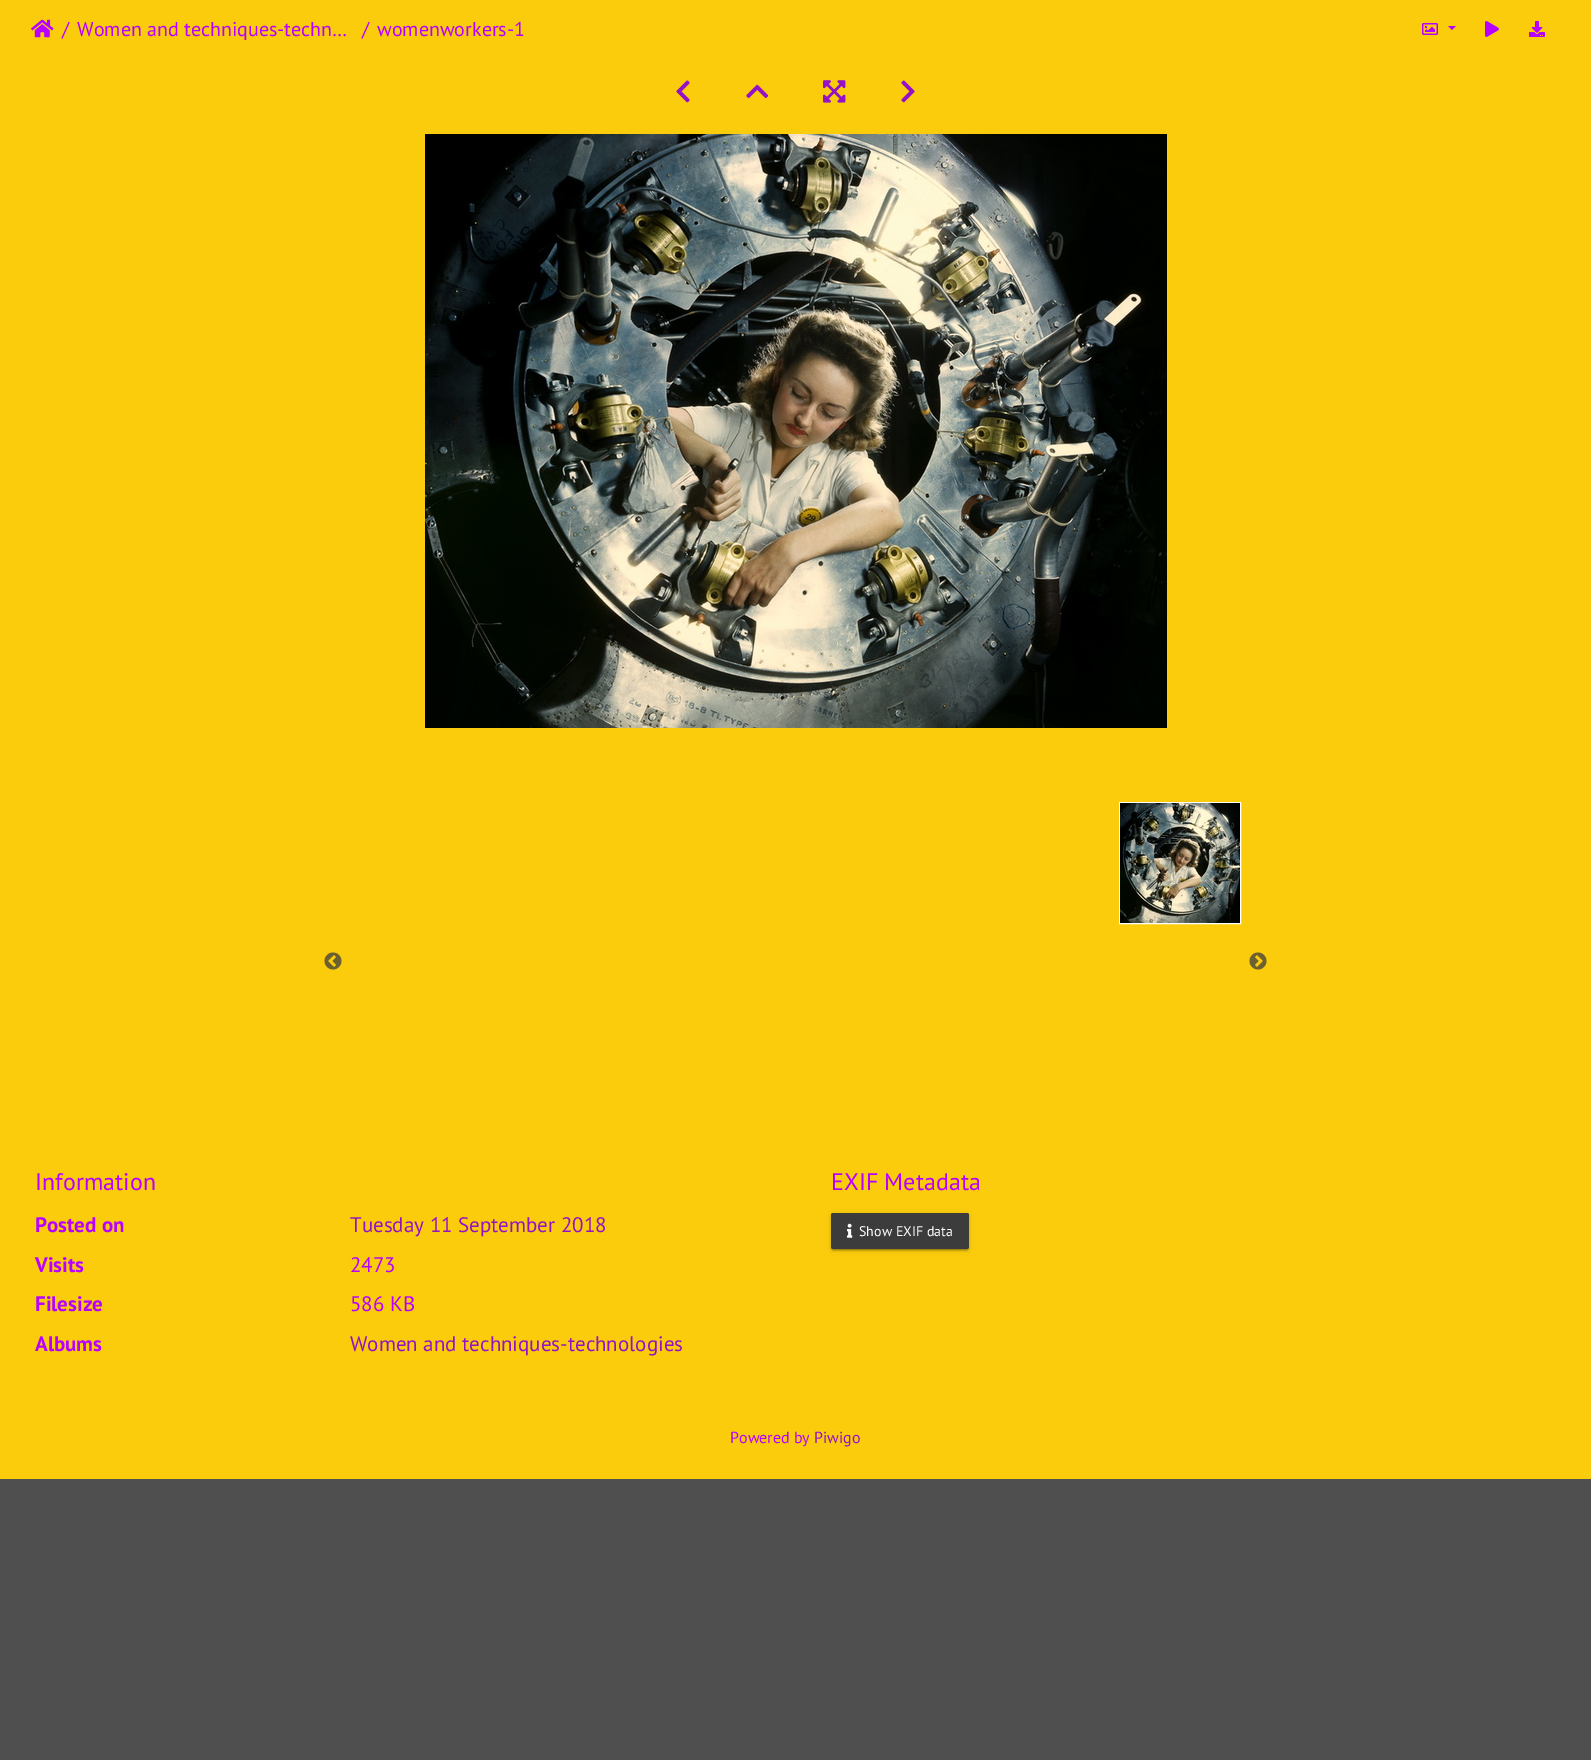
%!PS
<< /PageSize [1591 1760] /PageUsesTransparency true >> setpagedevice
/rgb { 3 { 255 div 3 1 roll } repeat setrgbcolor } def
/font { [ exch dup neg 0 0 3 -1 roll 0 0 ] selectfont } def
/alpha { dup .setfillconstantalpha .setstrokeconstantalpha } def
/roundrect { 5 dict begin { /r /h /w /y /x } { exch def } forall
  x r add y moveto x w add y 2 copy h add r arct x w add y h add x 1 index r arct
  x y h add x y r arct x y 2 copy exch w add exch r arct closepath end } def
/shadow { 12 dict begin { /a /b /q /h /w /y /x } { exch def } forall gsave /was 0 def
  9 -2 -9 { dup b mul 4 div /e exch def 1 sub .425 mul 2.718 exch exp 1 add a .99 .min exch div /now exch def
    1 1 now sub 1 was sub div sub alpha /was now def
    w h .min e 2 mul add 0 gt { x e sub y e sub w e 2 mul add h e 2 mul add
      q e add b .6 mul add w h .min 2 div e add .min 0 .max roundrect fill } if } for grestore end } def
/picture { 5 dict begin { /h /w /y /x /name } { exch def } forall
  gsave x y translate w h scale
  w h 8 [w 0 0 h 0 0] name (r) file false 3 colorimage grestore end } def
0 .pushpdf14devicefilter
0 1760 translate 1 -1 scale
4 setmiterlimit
79 79 79 rgb
0 0 1591 1760 rectfill
251 204 12 rgb
0 0 1591 1479 rectfill
(img/1.rgb) 31 19 23 19 picture
(img/2.rgb) 1422 23 16 12 picture
183 0 255 rgb
1448 26 moveto 1456 26 lineto 1452 30 lineto closepath fill
(img/3.rgb) 1485 21 14 16 picture
(img/4.rgb) 1529 21 16 16 picture
(img/5.rgb) 676 80 14 23 picture
(img/6.rgb) 746 84 23 14 picture
(img/7.rgb) 823 80 23 23 picture
(img/8.rgb) 901 80 14 23 picture
(img/9.rgb) 425 134 742 594 picture
255 255 255 rgb
1119.5 802.5 121 121 rectstroke
(img/10.rgb) 1120 803 120 120 picture
(img/11.rgb) 324 952 18 18 picture
(img/12.rgb) 1249 952 18 18 picture
0 0 0 rgb
831 1214 138 36 2 2.5 0.12 shadow
833 1218 134 32 0 0.5 0.2 shadow
831 1215 138 36 2 1 0.14 shadow
60 60 60 rgb
831 1213 138 36 2 roundrect fill
(img/13.rgb) 847 1223 6 15 picture
/PTSans-Regular 20 font
183 0 255 rgb
[
  [(/) 62 36]
  [(Women and techniques-techn…) 77 36]
  [(/) 362 36]
  [(womenworkers-1) 377 36]
] { aload pop moveto show } forall
/PTSans-Regular 24 font
35 1190 moveto (Information) show
/PTSans-Bold 21 font
35 1232 moveto (Posted on) show
/PTSans-Regular 21 font
148 17 198 rgb
350 1232 moveto (Tuesday 11 September 2018) show
/PTSans-Bold 21 font
183 0 255 rgb
35 1272 moveto (Visits) show
/PTSans-Regular 21 font
350 1272 moveto (2473) show
/PTSans-Bold 21 font
35 1311 moveto (Filesize) show
/PTSans-Regular 21 font
350 1311 moveto (586 KB) show
/PTSans-Bold 21 font
35 1351 moveto (Albums) show
/PTSans-Regular 21 font
148 17 198 rgb
350 1351 moveto (Women and techniques-technologies) show
/PTSans-Regular 24 font
183 0 255 rgb
831 1190 moveto (EXIF Metadata) show
/PTSans-Regular 14 font
255 255 255 rgb
859 1236 moveto (Show EXIF data) show
/PTSans-Regular 16 font
183 0 255 rgb
730 1443 moveto (Powered by) show
148 17 198 rgb
814 1443 moveto (Piwigo) show
.poppdf14devicefilter showpage
